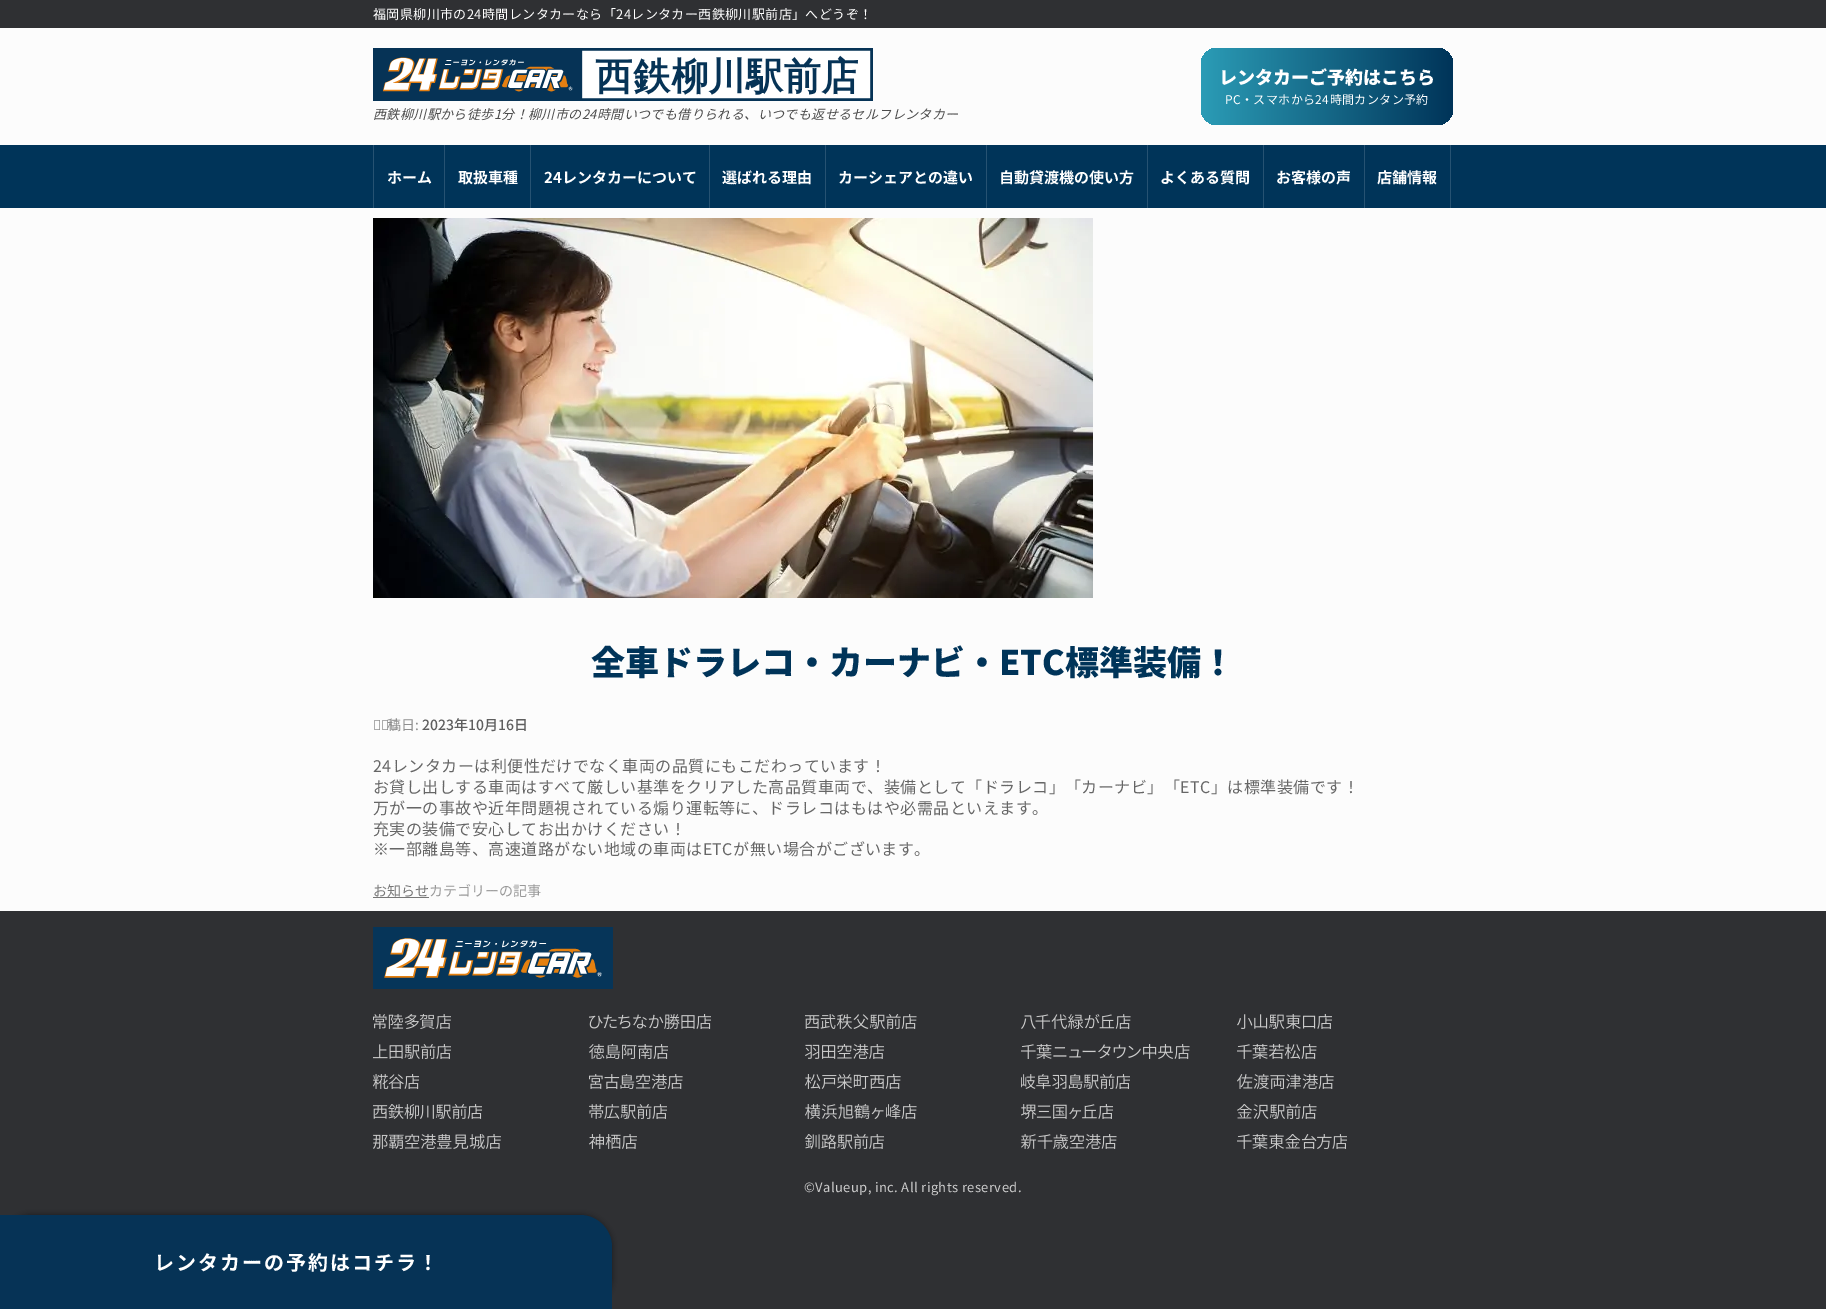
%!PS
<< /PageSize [1826 1309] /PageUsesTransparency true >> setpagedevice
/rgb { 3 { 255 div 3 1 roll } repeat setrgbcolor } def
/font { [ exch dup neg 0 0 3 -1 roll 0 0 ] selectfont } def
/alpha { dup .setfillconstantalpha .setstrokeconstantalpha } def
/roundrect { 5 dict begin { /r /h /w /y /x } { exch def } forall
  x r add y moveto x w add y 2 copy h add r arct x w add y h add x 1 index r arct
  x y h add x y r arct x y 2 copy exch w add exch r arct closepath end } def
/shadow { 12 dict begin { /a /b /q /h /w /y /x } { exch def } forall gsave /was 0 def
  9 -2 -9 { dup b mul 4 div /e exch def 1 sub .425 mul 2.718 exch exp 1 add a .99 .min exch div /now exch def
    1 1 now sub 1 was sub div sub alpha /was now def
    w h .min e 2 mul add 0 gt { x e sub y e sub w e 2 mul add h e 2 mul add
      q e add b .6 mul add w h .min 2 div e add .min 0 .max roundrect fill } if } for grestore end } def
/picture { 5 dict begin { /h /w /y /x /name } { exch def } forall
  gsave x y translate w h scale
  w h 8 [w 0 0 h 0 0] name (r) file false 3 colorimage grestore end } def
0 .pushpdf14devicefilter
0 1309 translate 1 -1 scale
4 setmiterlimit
47 48 51 rgb
0 0 1826 1309 rectfill
252 252 252 rgb
0 28 1826 117 rectfill
gsave 1201 48 252 77 16 roundrect clip newpath
<< /ShadingType 2 /ColorSpace /DeviceRGB /Coords [1201 87 1453 86] /Extend [true true] /Function << /FunctionType 2 /Domain [0 1] /C0 [0.169 0.612 0.714] /C1 [0 0.204 0.349] /N 1 >> >> shfill grestore
(img/1.rgb) 373 48 500 53 picture
[
  [0 145 1826 63 0 52 89]
  [373 145 1 63 38 82 114]
  [444 145 1 63 38 82 114]
  [530 145 1 63 38 82 114]
  [709 145 1 63 38 82 114]
  [825 145 1 63 38 82 114]
  [986 145 1 63 38 82 114]
  [1147 145 1 63 38 82 114]
  [1263 145 1 63 38 82 114]
  [1364 145 1 63 38 82 114]
  [1450 145 1 63 38 82 114]
  [0 208 1826 703 252 252 252]
] { aload pop rgb rectfill } forall
(img/2.rgb) 373 218 720 380 picture
119 119 119 rgb
373 897 56 1 rectfill
(img/3.rgb) 373 927 240 62 picture
(img/4.rgb) 373 1014 78 15 picture
(img/5.rgb) 589 1014 122 15 picture
(img/6.rgb) 805 1014 112 15 picture
(img/7.rgb) 1021 1014 110 15 picture
(img/8.rgb) 1237 1014 95 15 picture
(img/9.rgb) 373 1044 78 15 picture
(img/10.rgb) 589 1044 79 15 picture
(img/11.rgb) 805 1044 79 15 picture
(img/12.rgb) 1021 1044 169 15 picture
(img/13.rgb) 1237 1044 80 15 picture
(img/14.rgb) 373 1074 46 15 picture
(img/15.rgb) 589 1074 94 15 picture
(img/16.rgb) 805 1074 96 15 picture
(img/17.rgb) 1021 1074 109 15 picture
(img/18.rgb) 1237 1074 97 15 picture
(img/19.rgb) 373 1104 109 15 picture
(img/20.rgb) 589 1104 78 15 picture
(img/21.rgb) 805 1104 112 15 picture
(img/22.rgb) 1021 1104 92 15 picture
(img/23.rgb) 1237 1104 80 15 picture
(img/24.rgb) 373 1134 128 15 picture
(img/25.rgb) 589 1134 48 15 picture
(img/26.rgb) 805 1134 79 15 picture
(img/27.rgb) 1021 1134 96 15 picture
(img/28.rgb) 1237 1134 110 15 picture
0 0 0 rgb
0 1215 612 94 32 3 0.4 shadow
6 51 86 rgb
0 1215 moveto 580 1215 lineto 597.5 1215 612 1229.5 612 1247 curveto 612 1309 lineto 0 1309 lineto closepath fill
/NotoSansJP-Regular 13 font
255 255 255 rgb
373 19 moveto 0.4 0 (福岡県柳川市の24時間レンタカーなら「24レンタカー西鉄柳川駅前店」へどうぞ！) ashow
/NotoSansJP-Black 18 font
1219 84 moveto (レンタカーご予約はこちら) show
/NotoSansJP-Regular 12 font
1225 104 moveto 0.4 0 (PC・スマホから24時間カンタン予約) ashow
/NotoSansJP-Italic 13 font
75 75 75 rgb
373 119 moveto 0.4 0 (西鉄柳川駅から徒歩1分！柳川市の24時間いつでも借りられる、いつでも返せるセルフレンタカー) ashow
/NotoSansJP-Bold 15 font
255 255 255 rgb
[
  [(ホーム) 387 183]
  [(取扱車種) 458 183]
  [(24レンタカーについて) 544 183]
  [(選ばれる理由) 722 183]
  [(カーシェアとの違い) 838 183]
  [(自動貸渡機の使い方) 999 183]
  [(よくある質問) 1160 183]
  [(お客様の声) 1276 183]
  [(店舗情報) 1377 183]
] { aload pop moveto show } forall
/NotoSansJP-Black 34 font
0 52 89 rgb
591 675 moveto (全車ドラレコ・カーナビ・ETC標準装備！) show
/NotoSans-Regular 14 font
143 143 143 rgb
373 730 moveto (投) show
/NotoSansJP-Regular 14 font
387 730 moveto (稿日:) show
/NotoSansJP-Medium 14 font
94 94 94 rgb
422 730 moveto (2023年10月16日) show
/NotoSansJP-Regular 16 font
102 102 102 rgb
373 772 moveto 0.48 0 (24レンタカーは利便性だけでなく車両の品質にもこだわっています！) ashow
373 793 moveto 0.48 0 (お貸し出しする車両はすべて厳しい基準をクリアした高品質車両で、装備として「ドラレコ」「カーナビ」「ETC」は標準装備です！) ashow
373 814 moveto 0.48 0 (万が一の事故や近年問題視されている煽り運転等に、ドラレコはもはや必需品といえます。) ashow
373 835 moveto 0.48 0 (充実の装備で安心してお出かけください！) ashow
373 855 moveto 0.48 0 (※一部離島等、高速道路がない地域の車両はETCが無い場合がございます。) ashow
/NotoSansJP-Regular 14 font
119 119 119 rgb
373 896 moveto (お知らせ) show
153 153 153 rgb
429 896 moveto (カテゴリーの記事) show
/NotoSansJP-Regular 13 font
204 204 204 rgb
804 1192 moveto 0.4 0 (©Valueup, inc. All rights reserved.) ashow
/NotoSansJP-Bold 20 font
255 255 255 rgb
154 1270 moveto 2 0 (レンタカーの予約はコチラ！) ashow
.poppdf14devicefilter showpage
